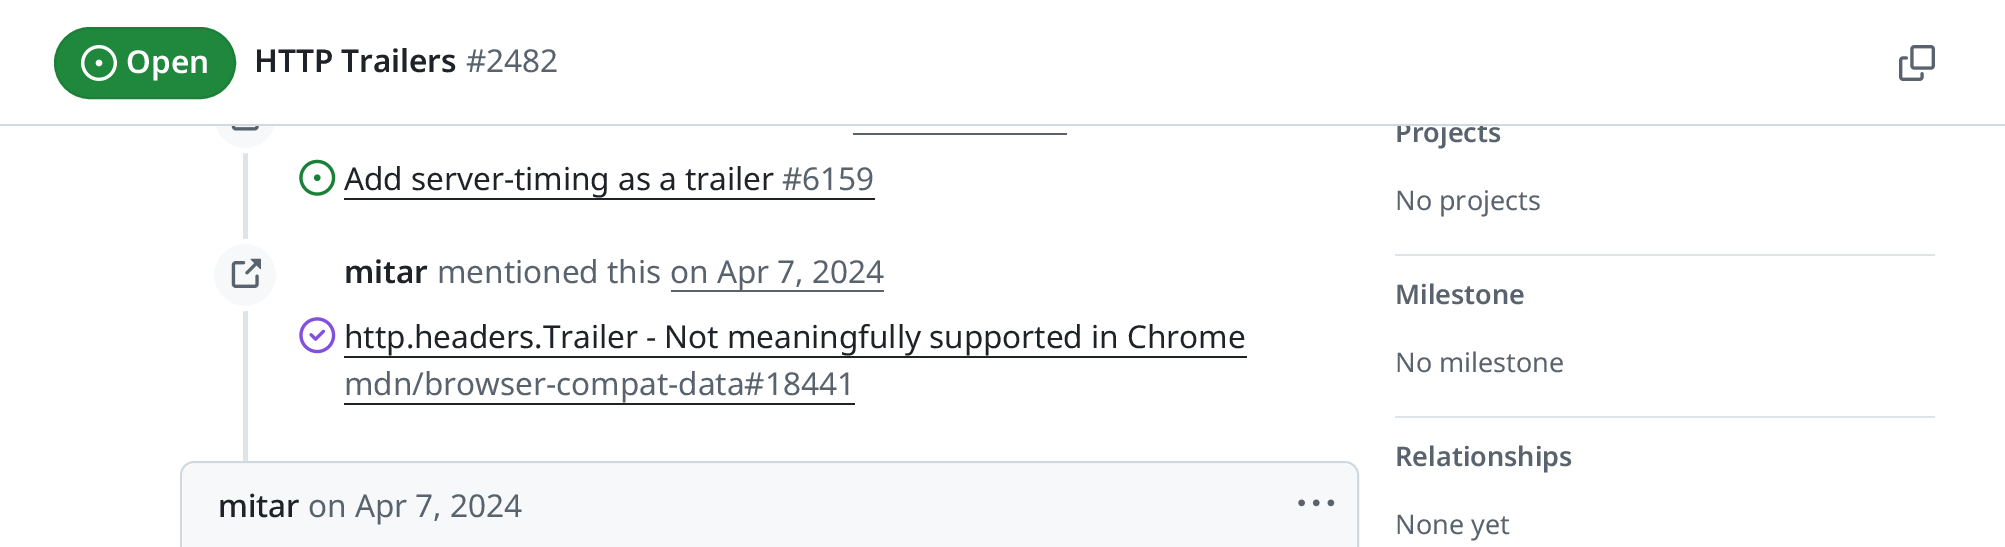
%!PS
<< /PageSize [2005 547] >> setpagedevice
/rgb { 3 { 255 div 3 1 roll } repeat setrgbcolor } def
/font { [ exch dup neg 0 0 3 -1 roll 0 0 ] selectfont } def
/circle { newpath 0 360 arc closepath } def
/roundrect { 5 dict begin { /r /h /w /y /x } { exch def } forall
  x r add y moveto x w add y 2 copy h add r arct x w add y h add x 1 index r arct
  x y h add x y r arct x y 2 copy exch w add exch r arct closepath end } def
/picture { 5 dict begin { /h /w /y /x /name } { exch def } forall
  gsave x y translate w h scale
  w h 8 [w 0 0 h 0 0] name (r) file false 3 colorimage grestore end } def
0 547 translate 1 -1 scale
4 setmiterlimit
255 255 255 rgb
0 0 2005 547 rectfill
(img/2.rgb) 1899 45 36 36 picture
223 228 233 rgb
243 152 5 273 rectfill
246 248 250 rgb
245 117 33.5 circle gsave fill grestore
255 255 255 rgb
5 setlinewidth
stroke
(img/3.rgb) 231 126 28 5 picture
89 99 110 rgb
853 133 214 2 rectfill
(img/4.rgb) 299 159 37 37 picture
31 35 40 rgb
344 198 531 2 rectfill
246 248 250 rgb
245 275 33.5 circle gsave fill grestore
255 255 255 rgb
stroke
(img/5.rgb) 231 258 30 30 picture
89 99 110 rgb
671 290 213 2 rectfill
(img/6.rgb) 299 317 37 37 picture
[
  [344 356 903 2 31 35 40]
  [344 403 511 2 31 35 40]
  [243 425 5 36 223 228 233]
] { aload pop rgb rectfill } forall
209 217 224 rgb
2 setlinewidth
181 462 1177 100 13 roundrect stroke
246 248 250 rgb
196 464 moveto 1343 464 lineto 1350.5 464 1357 470.5 1357 478 curveto 1357 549 lineto 182 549 lineto 182 478 lineto 182 470.5 188.5 464 196 464 curveto closepath fill
(img/7.rgb) 1298 499 37 8 picture
223 228 233 rgb
1395 254 540 2 rectfill
1395 416 540 2 rectfill
/NotoSans-SemiBold 31.5 font
31 35 40 rgb
254 72 moveto (HTTP Trailers) show
/NotoSans-Regular 31.5 font
89 99 110 rgb
466 72 moveto (#2482) show
31 35 40 rgb
344 190 moveto (Add server-timing as a trailer) show
89 99 110 rgb
782 190 moveto (#6159) show
/NotoSans-SemiBold 31.5 font
31 35 40 rgb
344 283 moveto (mitar) show
/NotoSans-Regular 31.5 font
89 99 110 rgb
437 283 moveto (mentioned this) show
670 283 moveto (on Apr 7, 2024) show
31 35 40 rgb
344 348 moveto (http.headers.Trailer - Not meaningfully supported in Chrome) show
89 99 110 rgb
344 395 moveto (mdn/browser-compat-data#18441) show
gsave
218 482 81 47 rectclip
/NotoSans-Medium 31.5 font
31 35 40 rgb
218 517 moveto (mitar) show
grestore
308 517 moveto (on Apr 7, 2024) show
/NotoSans-SemiBold 27 font
1395 142 moveto (Projects) show
255 255 255 rgb
214 86 1232 38 rectfill
31 136 61 rgb
55 28 180 70 35 roundrect gsave fill grestore
26 127 55 rgb
stroke
(img/1.rgb) 81 45 36 36 picture
/NotoSans-SemiBold 31.5 font
255 255 255 rgb
126 73 moveto (Open) show
209 217 224 rgb
0 124 2005 2 rectfill
/NotoSans-Regular 27 font
89 99 110 rgb
1395 210 moveto (No projects) show
/NotoSans-SemiBold 27 font
1395 304 moveto (Milestone) show
/NotoSans-Regular 27 font
1395 372 moveto (No milestone) show
/NotoSans-SemiBold 27 font
1395 466 moveto (Relationships) show
/NotoSans-Regular 27 font
1395 534 moveto (None yet) show
showpage
